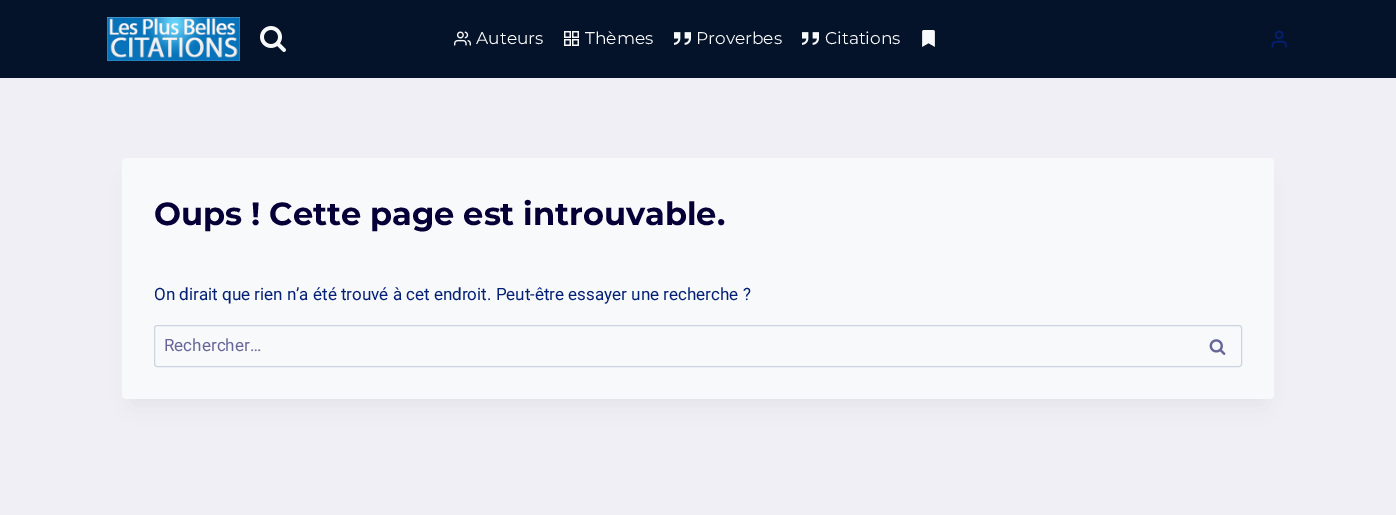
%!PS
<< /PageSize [1396 515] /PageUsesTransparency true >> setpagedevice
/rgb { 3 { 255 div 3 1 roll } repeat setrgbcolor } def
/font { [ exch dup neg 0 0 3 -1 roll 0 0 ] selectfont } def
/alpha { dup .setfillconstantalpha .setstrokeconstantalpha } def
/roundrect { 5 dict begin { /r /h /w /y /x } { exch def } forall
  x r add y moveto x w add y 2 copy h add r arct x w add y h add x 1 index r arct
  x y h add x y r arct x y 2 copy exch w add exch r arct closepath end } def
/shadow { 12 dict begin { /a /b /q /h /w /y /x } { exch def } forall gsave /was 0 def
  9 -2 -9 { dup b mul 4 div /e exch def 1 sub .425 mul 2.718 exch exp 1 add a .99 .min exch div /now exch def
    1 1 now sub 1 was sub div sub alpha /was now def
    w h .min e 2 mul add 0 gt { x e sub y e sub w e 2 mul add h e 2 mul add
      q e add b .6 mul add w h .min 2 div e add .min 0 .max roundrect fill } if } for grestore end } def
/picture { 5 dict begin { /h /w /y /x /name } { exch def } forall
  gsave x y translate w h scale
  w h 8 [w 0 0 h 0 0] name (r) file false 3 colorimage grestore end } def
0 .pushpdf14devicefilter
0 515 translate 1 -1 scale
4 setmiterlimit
239 239 245 rgb
0 0 1396 515 rectfill
4 19 41 rgb
0 0 1396 78 rectfill
(img/1.rgb) 107 17 133 44 picture
(img/2.rgb) 260 26 26 26 picture
(img/3.rgb) 454 31 17 15 picture
(img/4.rgb) 564 31 15 15 picture
(img/5.rgb) 674 32 17 13 picture
(img/5.rgb) 802 32 17 13 picture
(img/6.rgb) 922 30 13 17 picture
(img/7.rgb) 1271 30 16 18 picture
0 0 0 rgb
132 183 1132 221 0 12.5 0.05 shadow
248 249 250 rgb
122 158 1152 241 4 roundrect fill
203 213 224 rgb
154.5 325.5 1087 41 2.5 roundrect stroke
(img/8.rgb) 1209 339 17 16 picture
/Montserrat-Regular 17 font
248 249 250 rgb
[
  [(Auteurs) 476 44]
  [(Thèmes) 585 44]
  [(Proverbes) 696 44]
  [(Citations) 825 44]
] { aload pop moveto show } forall
/Montserrat-Bold 32 font
4 0 55 rgb
154 225 moveto (Oups ! Cette page est introuvable.) show
/Roboto-Regular 17 font
3 32 117 rgb
154 300 moveto (On dirait que rien n’a été trouvé à cet endroit. Peut-être essayer une recherche ?) show
102 102 153 rgb
164 351 moveto (Rechercher…) show
.poppdf14devicefilter showpage
